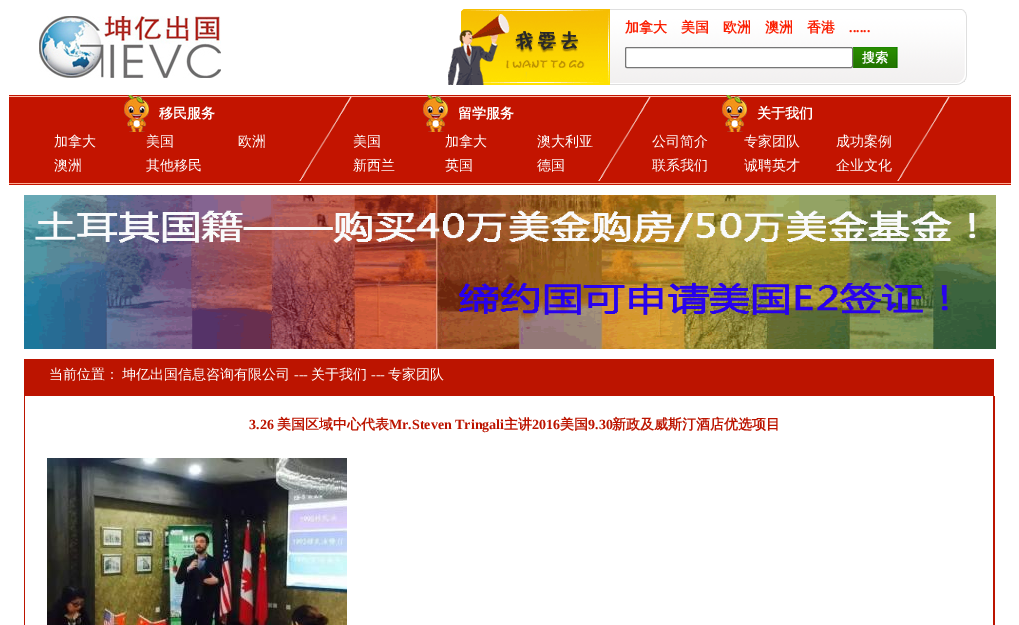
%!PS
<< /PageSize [1019 625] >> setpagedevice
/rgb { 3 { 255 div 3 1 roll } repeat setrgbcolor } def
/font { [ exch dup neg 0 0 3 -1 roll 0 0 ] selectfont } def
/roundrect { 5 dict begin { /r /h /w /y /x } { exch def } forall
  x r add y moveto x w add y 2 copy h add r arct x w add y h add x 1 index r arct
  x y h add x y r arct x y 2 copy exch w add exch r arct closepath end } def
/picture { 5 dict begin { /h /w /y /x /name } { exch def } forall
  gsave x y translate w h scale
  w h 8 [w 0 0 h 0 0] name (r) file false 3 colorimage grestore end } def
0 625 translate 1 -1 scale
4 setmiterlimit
255 255 255 rgb
0 0 1019 625 rectfill
(img/1.rgb) 39 16 182 62 picture
(img/2.rgb) 448 9 162 76 picture
(img/3.rgb) 610 9 346 76 picture
625.5 47.5 227 20 1.5 roundrect gsave fill grestore
118 118 118 rgb
stroke
(img/4.rgb) 853 47 45 21 picture
(img/5.rgb) 956 9 11 76 picture
(img/6.rgb) 9 95 1002 90 picture
(img/7.rgb) 124 95 25 37 picture
(img/7.rgb) 423 95 25 37 picture
(img/7.rgb) 722 95 25 37 picture
(img/9.rgb) 897 97 53 84 picture
(img/10.rgb) 24 195 972 154 picture
188 20 0 rgb
24 359 970 37 rectfill
(img/11.rgb) 24 396 971 229 picture
(img/12.rgb) 47 458 300 167 picture
/WenQuanYiZenHei-Bold 14 font
251 31 2 rgb
[
  [(加拿大) 625 32]
  [(美国) 681 32]
  [(欧洲) 723 32]
  [(澳洲) 765 32]
  [(香港) 807 32]
] { aload pop moveto show } forall
/LiberationSerif-Bold 14 font
849 32 moveto (......) show
/WenQuanYiZenHei-Bold 13 font
255 255 255 rgb
862 62 moveto (搜索) show
/WenQuanYiZenHei-Bold 14 font
159 118 moveto (移民服务) show
/WenQuanYiZenHei-Medium 14 font
[
  [(加拿大) 54 146]
  [(美国) 146 146]
  [(欧洲) 238 146]
  [(澳洲) 54 170]
  [(其他移民) 146 170]
] { aload pop moveto show } forall
/WenQuanYiZenHei-Bold 14 font
458 118 moveto (留学服务) show
/WenQuanYiZenHei-Medium 14 font
[
  [(美国) 353 146]
  [(加拿大) 445 146]
  [(澳大利亚) 537 146]
  [(新西兰) 353 170]
] { aload pop moveto show } forall
(img/8.rgb) 299 97 54 84 picture
445 170 moveto (英国) show
537 170 moveto (德国) show
/WenQuanYiZenHei-Bold 14 font
757 118 moveto (关于我们) show
/WenQuanYiZenHei-Medium 14 font
[
  [(公司简介) 652 146]
  [(专家团队) 744 146]
  [(成功案例) 836 146]
  [(联系我们) 652 170]
] { aload pop moveto show } forall
(img/8.rgb) 598 97 54 84 picture
[
  [(诚聘英才) 744 170]
  [(企业文化) 836 170]
  [(当前位置：) 49 379]
  [(坤亿出国信息咨询有限公司) 122 379]
] { aload pop moveto show } forall
/LiberationSerif-Regular 14 font
294 379 moveto (---) show
/WenQuanYiZenHei-Medium 14 font
311 379 moveto (关于我们) show
/LiberationSerif-Regular 14 font
371 379 moveto (---) show
/WenQuanYiZenHei-Medium 14 font
388 379 moveto (专家团队) show
/LiberationSerif-Bold 14 font
188 20 0 rgb
249 429 moveto (3.26) show
/WenQuanYiZenHei-Bold 14 font
277 429 moveto (美国区域中心代表) show
/LiberationSerif-Bold 14 font
389 429 moveto (Mr.Steven Tringali) show
/WenQuanYiZenHei-Bold 14 font
504 429 moveto (主讲) show
/LiberationSerif-Bold 14 font
532 429 moveto (2016) show
/WenQuanYiZenHei-Bold 14 font
560 429 moveto (美国) show
/LiberationSerif-Bold 14 font
588 429 moveto (9.30) show
/WenQuanYiZenHei-Bold 14 font
612 429 moveto (新政及威斯汀酒店优选项目) show
showpage
